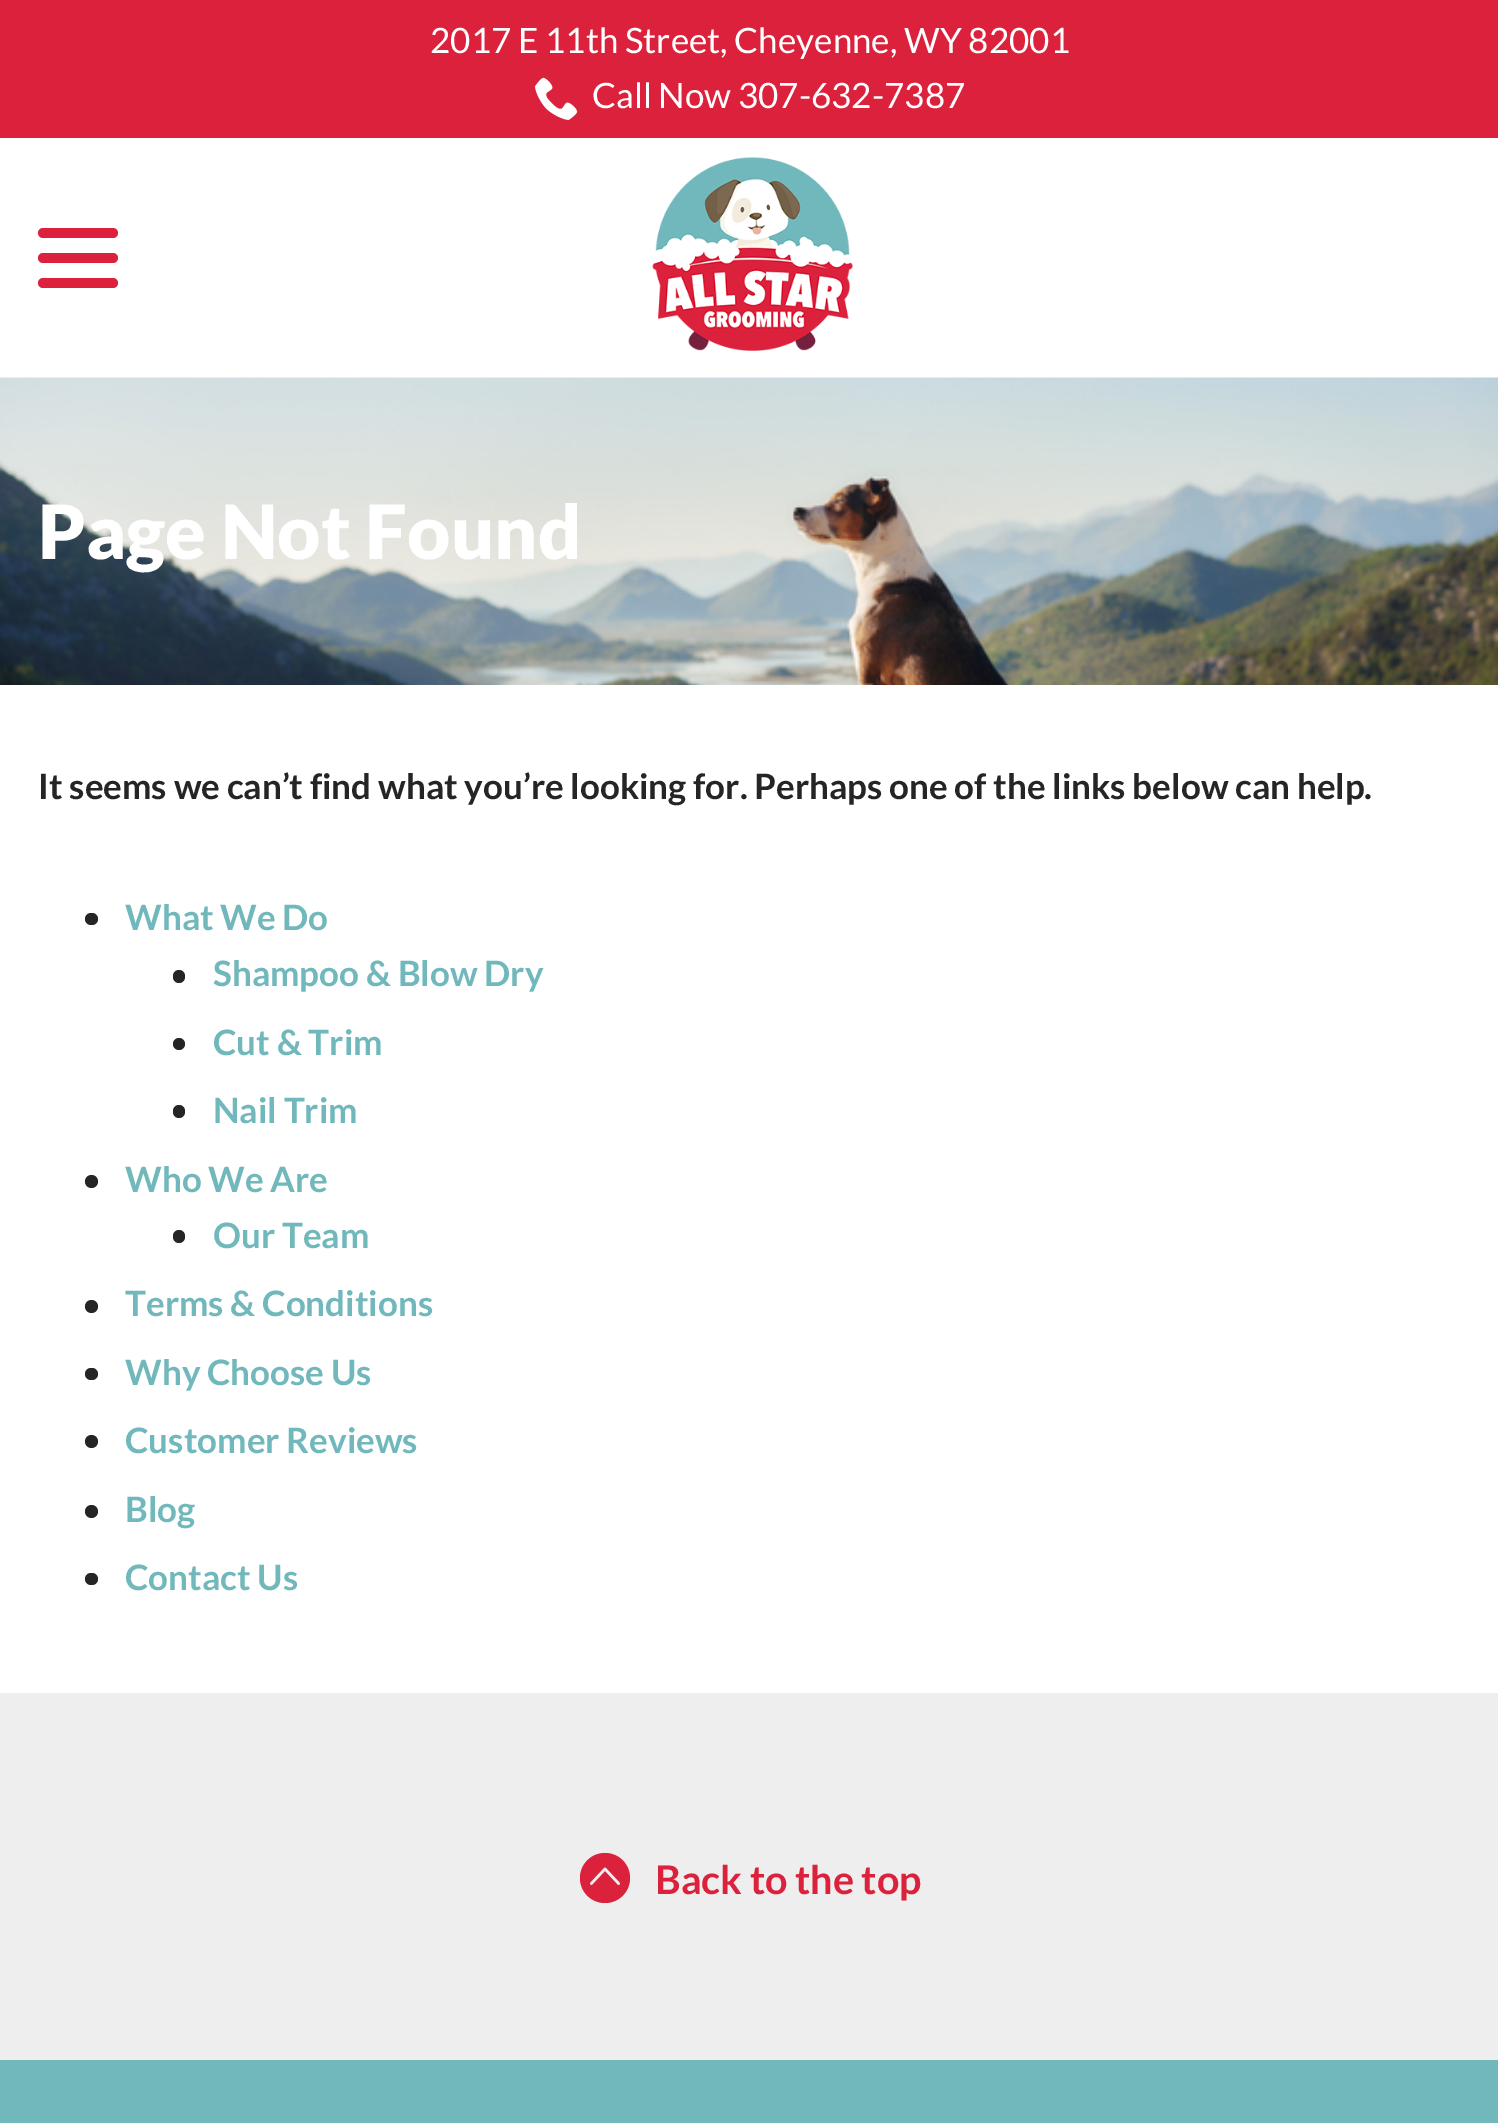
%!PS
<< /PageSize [1498 2123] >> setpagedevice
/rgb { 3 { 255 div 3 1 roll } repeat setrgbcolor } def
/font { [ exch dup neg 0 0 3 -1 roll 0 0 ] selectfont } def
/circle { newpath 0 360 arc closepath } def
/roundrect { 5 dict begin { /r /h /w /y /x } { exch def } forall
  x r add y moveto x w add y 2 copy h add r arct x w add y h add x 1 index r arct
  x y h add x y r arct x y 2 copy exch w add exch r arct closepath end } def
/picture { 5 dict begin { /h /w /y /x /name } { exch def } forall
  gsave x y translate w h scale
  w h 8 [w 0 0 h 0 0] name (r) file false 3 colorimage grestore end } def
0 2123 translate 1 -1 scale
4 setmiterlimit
255 255 255 rgb
0 0 1498 2123 rectfill
219 33 60 rgb
0 0 1498 138 rectfill
(img/1.rgb) 535 77 43 43 picture
38 253 80 10 5 roundrect fill
38 228 80 10 5 roundrect fill
38 278 80 10 5 roundrect fill
(img/2.rgb) 652 157 201 194 picture
(img/3.rgb) 0 377 1498 308 picture
37 37 37 rgb
85 913 13 12 6 roundrect fill
173 970 12 13 6 roundrect fill
179 1044 6 circle fill
173 1105 12 13 6 roundrect fill
91.5 1181.5 6.5 circle fill
173 1230 12 13 6 roundrect fill
91.5 1306.5 6.5 circle fill
85 1368 13 12 6 roundrect fill
91.5 1441.5 6.5 circle fill
91.5 1511.5 6.5 circle fill
85 1573 13 12 6 roundrect fill
238 238 238 rgb
0 1693 1498 367 rectfill
219 33 60 rgb
605 1878 25 circle fill
(img/4.rgb) 590 1867 30 18 picture
113 184 188 rgb
0 2060 1498 63 rectfill
/Lato-Regular 35 font
255 255 255 rgb
430 53 moveto (2017 E 11th Street, Cheyenne, WY 82001) show
592 108 moveto (Call Now 307-632-7387) show
/Lato-Black 75 font
38 559 moveto (Page Not Found) show
/Lato-Bold 35 font
37 37 37 rgb
38 799 moveto (It seems we can’t find what you’re looking for. Perhaps one of the links below can help.) show
113 184 188 rgb
[
  [(What We Do) 125 930]
  [(Shampoo & Blow Dry) 213 986]
  [(Cut & Trim) 213 1055]
  [(Nail Trim) 213 1123]
  [(Who We Are) 125 1192]
  [(Our Team) 213 1248]
  [(Terms & Conditions) 125 1316]
  [(Why Choose Us) 125 1385]
  [(Customer Reviews) 125 1453]
  [(Blog) 125 1522]
  [(Contact Us) 125 1590]
] { aload pop moveto show } forall
/Lato-Bold 39.5 font
219 33 60 rgb
655 1894 moveto (Back to the top) show
showpage
